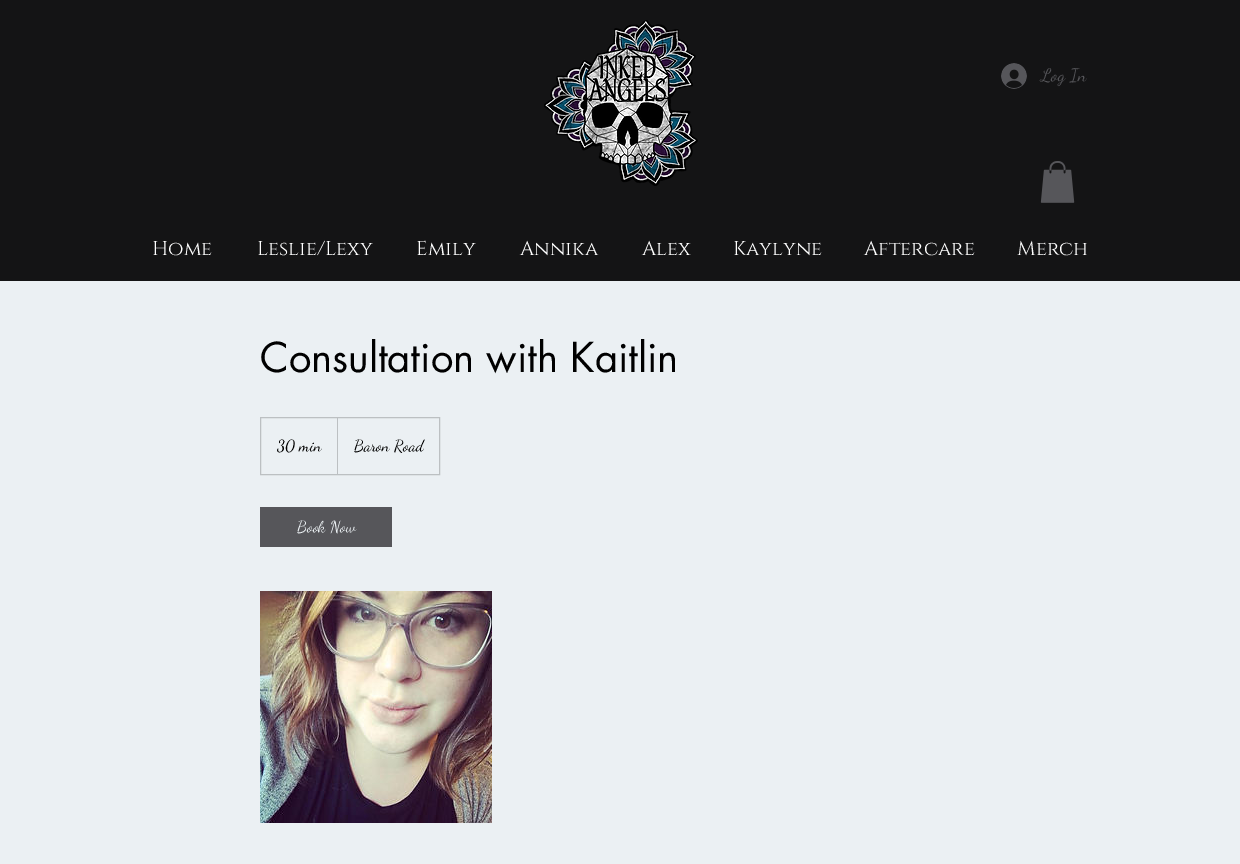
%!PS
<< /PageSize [1240 864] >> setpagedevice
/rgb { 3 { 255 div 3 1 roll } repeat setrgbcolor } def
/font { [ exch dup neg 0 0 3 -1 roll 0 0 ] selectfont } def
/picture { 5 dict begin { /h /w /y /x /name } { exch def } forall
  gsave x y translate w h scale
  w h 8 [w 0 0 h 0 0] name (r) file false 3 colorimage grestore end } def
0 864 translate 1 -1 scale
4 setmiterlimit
20 20 21 rgb
0 0 1240 864 rectfill
(img/1.rgb) 544 20 154 166 picture
(img/2.rgb) 1001 63 26 26 picture
(img/3.rgb) 1040 161 35 42 picture
235 240 243 rgb
0 281 1240 583 rectfill
188 192 194 rgb
260.5 417.5 179 57 rectstroke
337 474 moveto 337 417 lineto 338 418 lineto 338 474 lineto closepath fill
86 86 90 rgb
260 507 132 40 rectfill
(img/4.rgb) 260 591 232 232 picture
/DancingScript-Regular 18 font
1041 81 moveto (Log In) show
/Cinzel-Regular 20 font
255 255 255 rgb
[
  [(Home) 152 255]
  [(Leslie/Lexy) 257 255]
  [(Emily) 416 255]
  [(Annika) 520 255]
  [(Alex) 642 255]
  [(Kaylyne) 733 255]
  [(Aftercare) 864 255]
  [(Merch) 1017 255]
] { aload pop moveto show } forall
/futura-Regular 40 font
0 0 0 rgb
260 372 moveto (Consultation with Kaitlin) show
/DancingScript-Regular 16 font
277 451 moveto (30 min) show
354 451 moveto (Baron Road) show
235 240 243 rgb
297 532 moveto (Book Now) show
showpage
